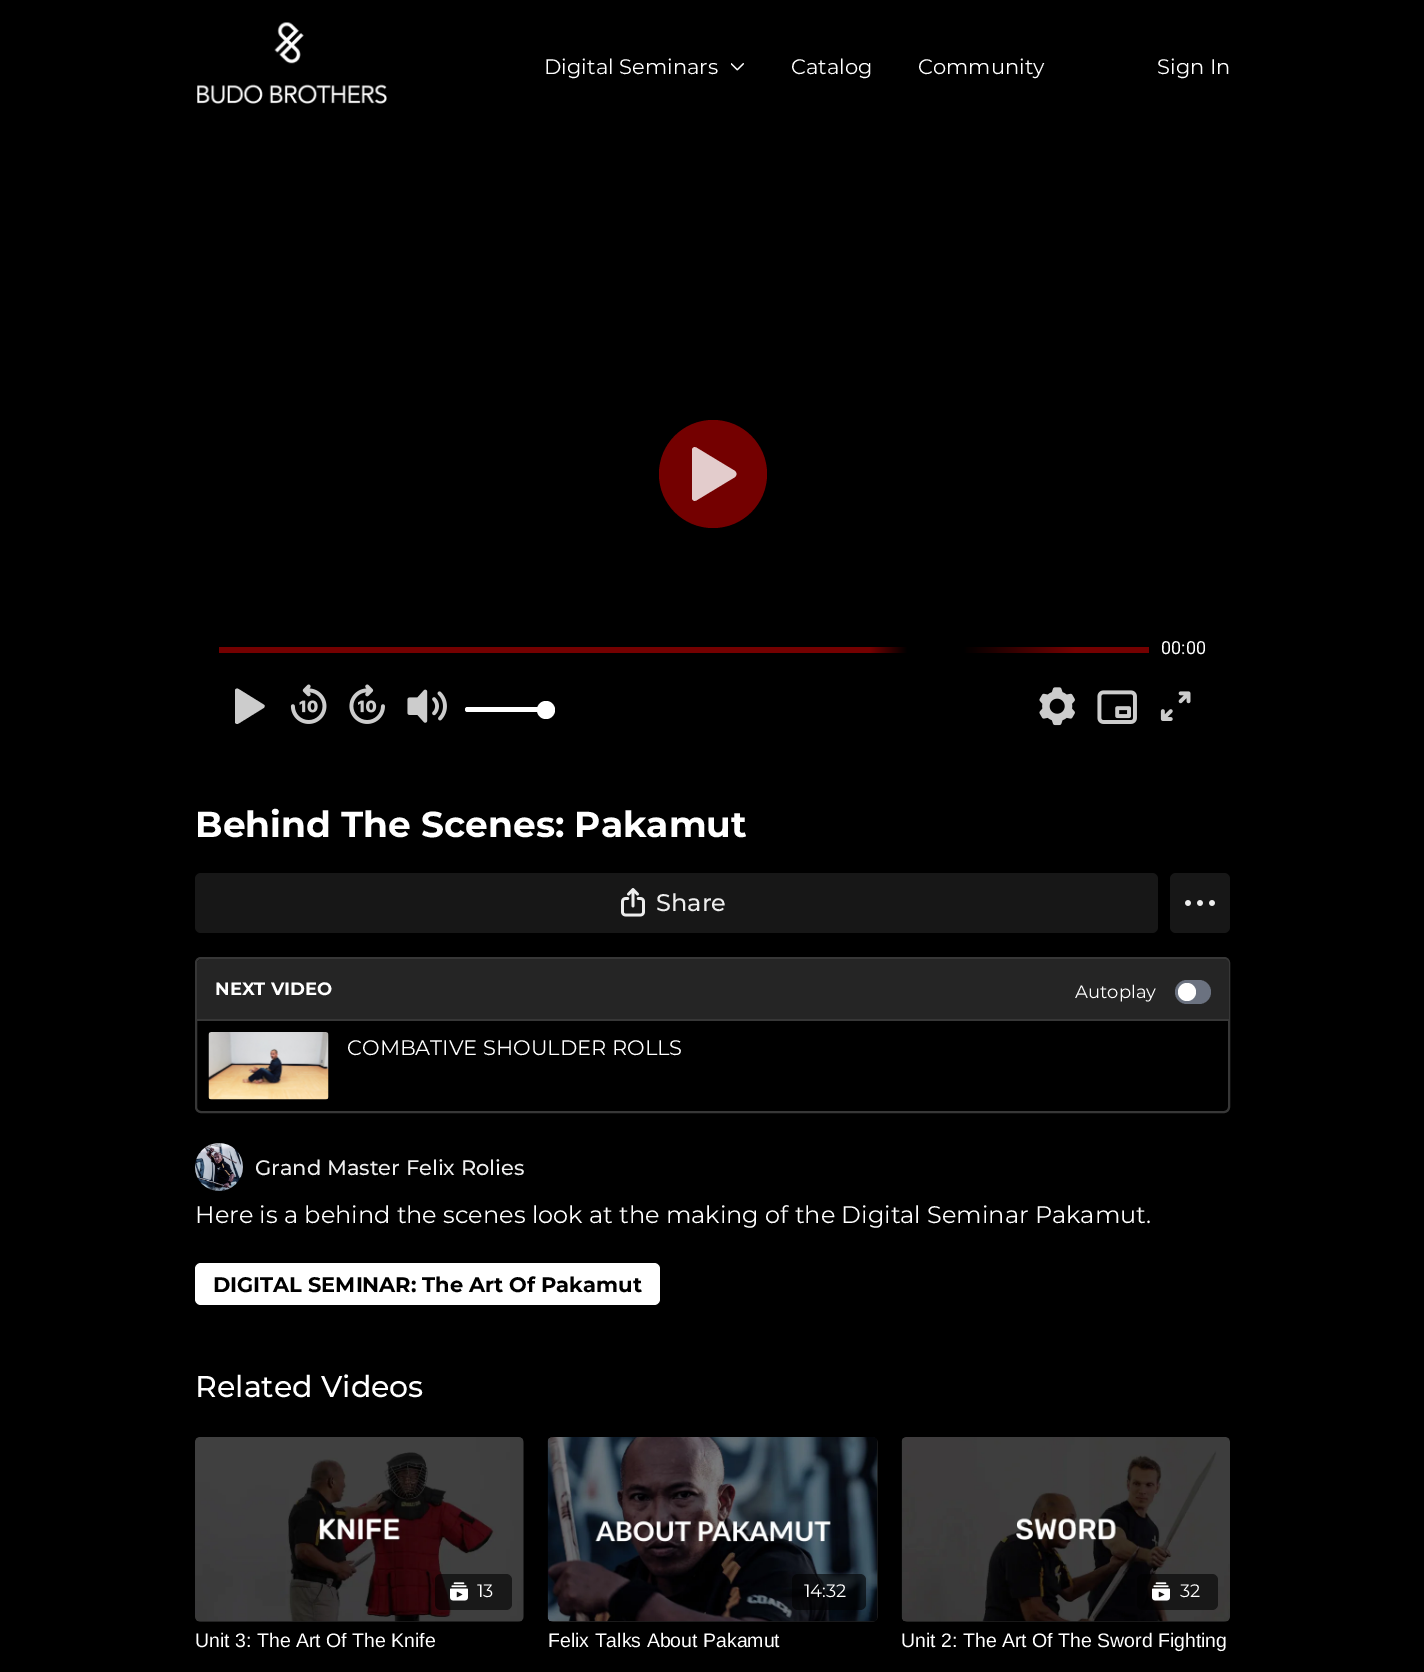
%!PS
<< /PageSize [1424 1672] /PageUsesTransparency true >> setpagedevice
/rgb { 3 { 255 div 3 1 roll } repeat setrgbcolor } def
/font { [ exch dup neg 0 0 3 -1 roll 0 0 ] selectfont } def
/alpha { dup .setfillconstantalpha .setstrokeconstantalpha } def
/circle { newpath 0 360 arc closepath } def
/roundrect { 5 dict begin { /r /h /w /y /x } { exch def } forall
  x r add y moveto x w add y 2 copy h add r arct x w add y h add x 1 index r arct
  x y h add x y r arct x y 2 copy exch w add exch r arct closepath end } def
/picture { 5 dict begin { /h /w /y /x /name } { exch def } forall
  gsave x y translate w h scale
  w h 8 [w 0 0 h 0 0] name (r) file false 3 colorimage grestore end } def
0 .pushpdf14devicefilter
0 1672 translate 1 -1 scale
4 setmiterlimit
0 0 0 rgb
0 0 1424 1672 rectfill
(img/1.rgb) 197 22 190 82 picture
(img/2.rgb) 731 63 13 8 picture
116 0 0 rgb
713 474 54 circle fill
227 204 204 rgb
697 448 moveto 694 446 692 448 692 450 curveto 692 498 lineto 692 500 694 502 697 500 curveto 735 477 lineto 737 475 737 473 735 471 curveto closepath fill
gsave 219 647 930 6 3 roundrect clip newpath
<< /ShadingType 2 /ColorSpace /DeviceRGB /Coords [219 653 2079 652] /Extend [true true] /Function << /FunctionType 3 /Domain [0 1] /Functions [<< /FunctionType 2 /Domain [0 1] /C0 [0.455 0 0] /C1 [0.455 0 0] /N 1 >> << /FunctionType 2 /Domain [0 1] /C0 [0.455 0 0] /C1 [0 0 0] /N 1 >> << /FunctionType 2 /Domain [0 1] /C0 [0 0 0] /C1 [0 0 0] /N 1 >> << /FunctionType 2 /Domain [0 1] /C0 [0 0 0] /C1 [0.455 0 0] /N 1 >> << /FunctionType 2 /Domain [0 1] /C0 [0.455 0 0] /C1 [0.455 0 0] /N 1 >>] /Bounds [0.35 0.37 0.4 0.46] /Encode [0 1 0 1 0 1 0 1 0 1] >> >> shfill grestore
204 204 204 rgb
238.5 689 moveto 237 688 235 689 235 690.5 curveto 235 722 lineto 235 723.5 237 724.5 238.5 723.5 curveto 263.5 708 lineto 265 707 265 705 263.5 704.5 curveto closepath fill
(img/3.rgb) 290 684 37 40 picture
(img/4.rgb) 349 684 36 40 picture
(img/5.rgb) 407 689 40 34 picture
255 255 255 rgb
465 707 90 5 2.5 roundrect fill
546 710 9 circle fill
(img/6.rgb) 1039 687 36 39 picture
(img/7.rgb) 1097 690 40 34 picture
(img/8.rgb) 1160 691 31 30 picture
23 23 23 rgb
195 873 963 60 6 roundrect fill
(img/9.rgb) 621 888 24 29 picture
1170 873 60 60 6 roundrect fill
(img/10.rgb) 1185 900 30 6 picture
55 55 55 rgb
2 setlinewidth
196 958 1033 154 5 roundrect stroke
37 37 37 rgb
202 959 moveto 1224 959 lineto 1227 959 1229 961 1229 964 curveto 1229 1019 lineto 197 1019 lineto 197 964 lineto 197 961 199 959 202 959 curveto closepath fill
55 55 55 rgb
197 1019 1032 2 rectfill
107 114 128 rgb
1175 980 36 24 12 roundrect fill
255 255 255 rgb
1187 992 9 circle fill
(img/11.rgb) 208 1032 121 68 picture
(img/12.rgb) 195 1143 48 48 picture
195 1263 465 42 6 roundrect fill
gsave 195 1437 329 185 6 roundrect clip newpath
<< /ShadingType 2 /ColorSpace /DeviceRGB /Coords [195 1529 524 1529] /Extend [true true] /Function << /FunctionType 3 /Domain [0 1] /Functions [<< /FunctionType 2 /Domain [0 1] /C0 [0.129 0.129 0.129] /C1 [0.129 0.129 0.129] /N 1 >> << /FunctionType 2 /Domain [0 1] /C0 [0.129 0.129 0.129] /C1 [0.122 0.122 0.122] /N 1 >> << /FunctionType 2 /Domain [0 1] /C0 [0.122 0.122 0.122] /C1 [0.11 0.11 0.11] /N 1 >> << /FunctionType 2 /Domain [0 1] /C0 [0.11 0.11 0.11] /C1 [0.11 0.11 0.11] /N 1 >>] /Bounds [0.08 0.18 0.33] /Encode [0 1 0 1 0 1 0 1] >> >> shfill grestore
(img/13.rgb) 195 1437 329 185 picture
0.6 alpha
0 0 0 rgb
435 1574 77 36 6 roundrect fill
1 alpha
(img/14.rgb) 450 1582 18 19 picture
gsave 548 1437 330 185 6 roundrect clip newpath
<< /ShadingType 2 /ColorSpace /DeviceRGB /Coords [548 1529 878 1529] /Extend [true true] /Function << /FunctionType 3 /Domain [0 1] /Functions [<< /FunctionType 2 /Domain [0 1] /C0 [0.129 0.129 0.129] /C1 [0.129 0.129 0.129] /N 1 >> << /FunctionType 2 /Domain [0 1] /C0 [0.129 0.129 0.129] /C1 [0.122 0.122 0.122] /N 1 >> << /FunctionType 2 /Domain [0 1] /C0 [0.122 0.122 0.122] /C1 [0.11 0.11 0.11] /N 1 >> << /FunctionType 2 /Domain [0 1] /C0 [0.11 0.11 0.11] /C1 [0.11 0.11 0.11] /N 1 >>] /Bounds [0.08 0.18 0.33] /Encode [0 1 0 1 0 1 0 1] >> >> shfill grestore
(img/15.rgb) 547 1437 331 185 picture
0.6 alpha
792 1574 74 36 6 roundrect fill
1 alpha
gsave 902 1437 328 185 6 roundrect clip newpath
<< /ShadingType 2 /ColorSpace /DeviceRGB /Coords [902 1529 1230 1529] /Extend [true true] /Function << /FunctionType 3 /Domain [0 1] /Functions [<< /FunctionType 2 /Domain [0 1] /C0 [0.129 0.129 0.129] /C1 [0.129 0.129 0.129] /N 1 >> << /FunctionType 2 /Domain [0 1] /C0 [0.129 0.129 0.129] /C1 [0.122 0.122 0.122] /N 1 >> << /FunctionType 2 /Domain [0 1] /C0 [0.122 0.122 0.122] /C1 [0.11 0.11 0.11] /N 1 >> << /FunctionType 2 /Domain [0 1] /C0 [0.11 0.11 0.11] /C1 [0.11 0.11 0.11] /N 1 >>] /Bounds [0.08 0.18 0.33] /Encode [0 1 0 1 0 1 0 1] >> >> shfill grestore
(img/16.rgb) 901 1437 329 185 picture
0.6 alpha
1137 1574 81 36 6 roundrect fill
1 alpha
(img/17.rgb) 1152 1582 18 19 picture
/Montserrat-Regular 21 font
255 255 255 rgb
[
  [(Digital Seminars) 544 74]
  [(Catalog) 791 74]
  [(Community) 918 74]
  [(Sign In) 1157 74]
] { aload pop moveto show } forall
/Roboto-Regular 18 font
1161 654 moveto (00:00) show
/Montserrat-Bold 36 font
195 837 moveto (Behind The Scenes: Pakamut) show
/Montserrat-Medium 24 font
238 238 238 rgb
656 911 moveto (Share) show
/Montserrat-Bold 18 font
255 255 255 rgb
215 995 moveto (NEXT VIDEO) show
/Montserrat-Regular 18 font
1075 998 moveto (Autoplay) show
/Montserrat-Regular 21 font
347 1055 moveto (COMBATIVE SHOULDER ROLLS) show
/Montserrat-Medium 21 font
238 238 238 rgb
255 1175 moveto (Grand Master Felix Rolies) show
/Montserrat-Regular 24 font
255 255 255 rgb
195 1223 moveto (Here is a behind the scenes look at the making of the Digital Seminar Pakamut.) show
/Montserrat-Bold 21 font
0 0 0 rgb
213 1292 moveto (DIGITAL SEMINAR: The Art Of Pakamut) show
/Montserrat-Medium 30 font
255 255 255 rgb
195 1397 moveto (Related Videos) show
/Montserrat-Regular 18 font
477 1597 moveto (13) show
/LiberationSans-Regular 19.5 font
195 1647 moveto (Unit 3: The Art Of The Knife) show
/Montserrat-Regular 18 font
804 1597 moveto (14:32) show
/LiberationSans-Regular 19.5 font
548 1647 moveto (Felix Talks About Pakamut) show
/Montserrat-Regular 18 font
1180 1597 moveto (32) show
/LiberationSans-Regular 19.5 font
901 1647 moveto (Unit 2: The Art Of The Sword Fighting) show
.poppdf14devicefilter showpage
